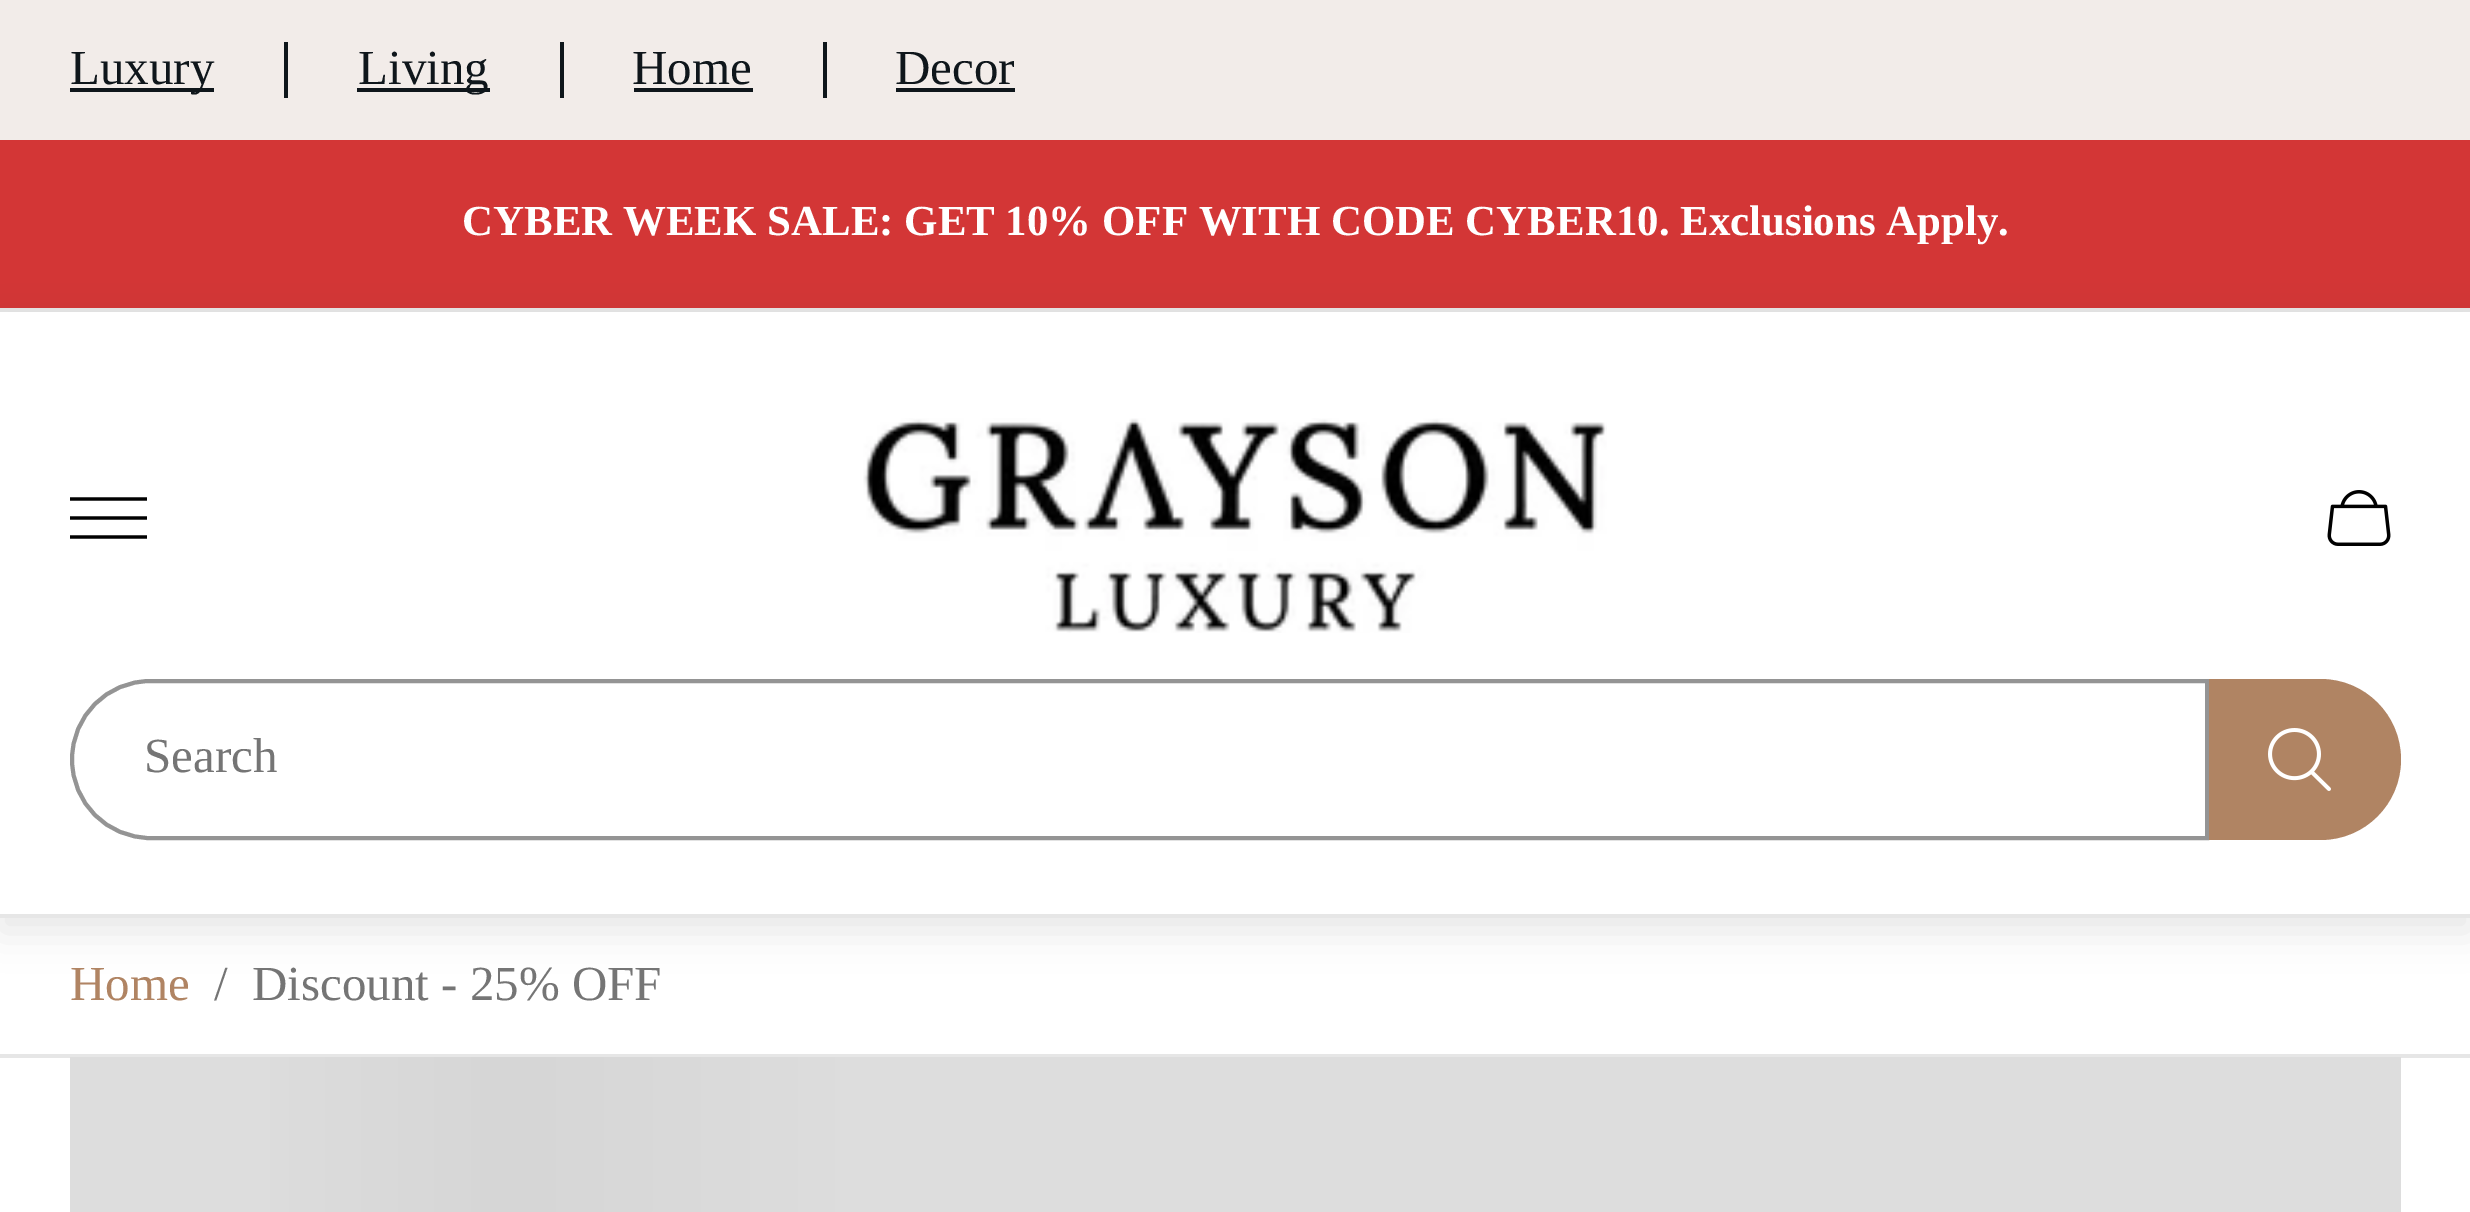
%!PS
<< /PageSize [2470 1212] /PageUsesTransparency true >> setpagedevice
/rgb { 3 { 255 div 3 1 roll } repeat setrgbcolor } def
/font { [ exch dup neg 0 0 3 -1 roll 0 0 ] selectfont } def
/alpha { dup .setfillconstantalpha .setstrokeconstantalpha } def
/roundrect { 5 dict begin { /r /h /w /y /x } { exch def } forall
  x r add y moveto x w add y 2 copy h add r arct x w add y h add x 1 index r arct
  x y h add x y r arct x y 2 copy exch w add exch r arct closepath end } def
/shadow { 12 dict begin { /a /b /q /h /w /y /x } { exch def } forall gsave /was 0 def
  9 -2 -9 { dup b mul 4 div /e exch def 1 sub .425 mul 2.718 exch exp 1 add a .99 .min exch div /now exch def
    1 1 now sub 1 was sub div sub alpha /was now def
    w h .min e 2 mul add 0 gt { x e sub y e sub w e 2 mul add h e 2 mul add
      q e add b .6 mul add w h .min 2 div e add .min 0 .max roundrect fill } if } for grestore end } def
/picture { 5 dict begin { /h /w /y /x /name } { exch def } forall
  gsave x y translate w h scale
  w h 8 [w 0 0 h 0 0] name (r) file false 3 colorimage grestore end } def
0 .pushpdf14devicefilter
0 1212 translate 1 -1 scale
4 setmiterlimit
255 255 255 rgb
0 0 2470 1212 rectfill
[
  [0 0 2470 140 242 236 233]
  [70 88 144 4 15 22 27]
  [284 42 4 56 15 22 27]
  [357 88 133 4 15 22 27]
  [560 42 4 56 15 22 27]
  [634 88 119 4 15 22 27]
  [823 42 4 56 15 22 27]
  [896 88 119 4 15 22 27]
  [0 140 2470 168 211 54 54]
  [0 308 2470 4 230 230 230]
] { aload pop rgb rectfill } forall
gsave
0 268 moveto 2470 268 lineto 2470 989 lineto 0 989 lineto closepath 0 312 moveto 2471 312 lineto 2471 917 lineto 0 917 lineto closepath eoclip newpath
0 0 0 rgb
0 326 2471 605 0 19 0.1 shadow
grestore
0 914 2470 4 rectfill
0 0 0 rgb
3.2 setlinewidth
70 499 moveto 147 499 lineto stroke
70 518 moveto 147 518 lineto stroke
70 537 moveto 147 537 lineto stroke
(img/1.rgb) 863 418 744 215 picture
(img/2.rgb) 2327 490 64 56 picture
148 148 148 rgb
4 setlinewidth
150.5 681 moveto 2207 681 lineto 2207 838 lineto 150.5 838 lineto 107 838 72 803 72 759.5 curveto 72 716 107 681 150.5 681 curveto closepath stroke
176 132 99 rgb
2209 679 moveto 2320.5 679 lineto 2365 679 2401 715 2401 759.5 curveto 2401 804 2365 840 2320.5 840 curveto 2209 840 lineto closepath fill
(img/3.rgb) 2268 728 63 63 picture
230 230 230 rgb
0 1054 2470 4 rectfill
gsave 70 1057 moveto 2401 1057 lineto 2401 1212 lineto 70 1212 lineto closepath clip newpath
<< /ShadingType 2 /ColorSpace /DeviceRGB /Coords [70 1057 2401 1057] /Extend [true true] /Function << /FunctionType 3 /Domain [0 1] /Functions [<< /FunctionType 2 /Domain [0 1] /C0 [0.867 0.867 0.867] /C1 [0.867 0.867 0.867] /N 1 >> << /FunctionType 2 /Domain [0 1] /C0 [0.867 0.867 0.867] /C1 [0.839 0.839 0.839] /N 1 >> << /FunctionType 2 /Domain [0 1] /C0 [0.839 0.839 0.839] /C1 [0.867 0.867 0.867] /N 1 >> << /FunctionType 2 /Domain [0 1] /C0 [0.867 0.867 0.867] /C1 [0.867 0.867 0.867] /N 1 >>] /Bounds [0.08 0.18 0.33] /Encode [0 1 0 1 0 1 0 1] >> >> shfill grestore
/LiberationSerif-Regular 49 font
15 22 27 rgb
[
  [(Luxury) 70 84]
  [(Living) 358 84]
  [(Home) 632 84]
  [(Decor) 895 84]
] { aload pop moveto show } forall
/LiberationSerif-Bold 42.9 font
255 255 255 rgb
462 235 moveto (CYBER WEEK SALE: GET 10% OFF WITH CODE CYBER10. Exclusions Apply.) show
/LiberationSerif-Regular 49 font
117 117 117 rgb
144 772 moveto (Search) show
176 132 99 rgb
70 1000 moveto (Home) show
117 117 117 rgb
214 1000 moveto (/) show
252 1000 moveto (Discount - 25% OFF) show
.poppdf14devicefilter showpage
